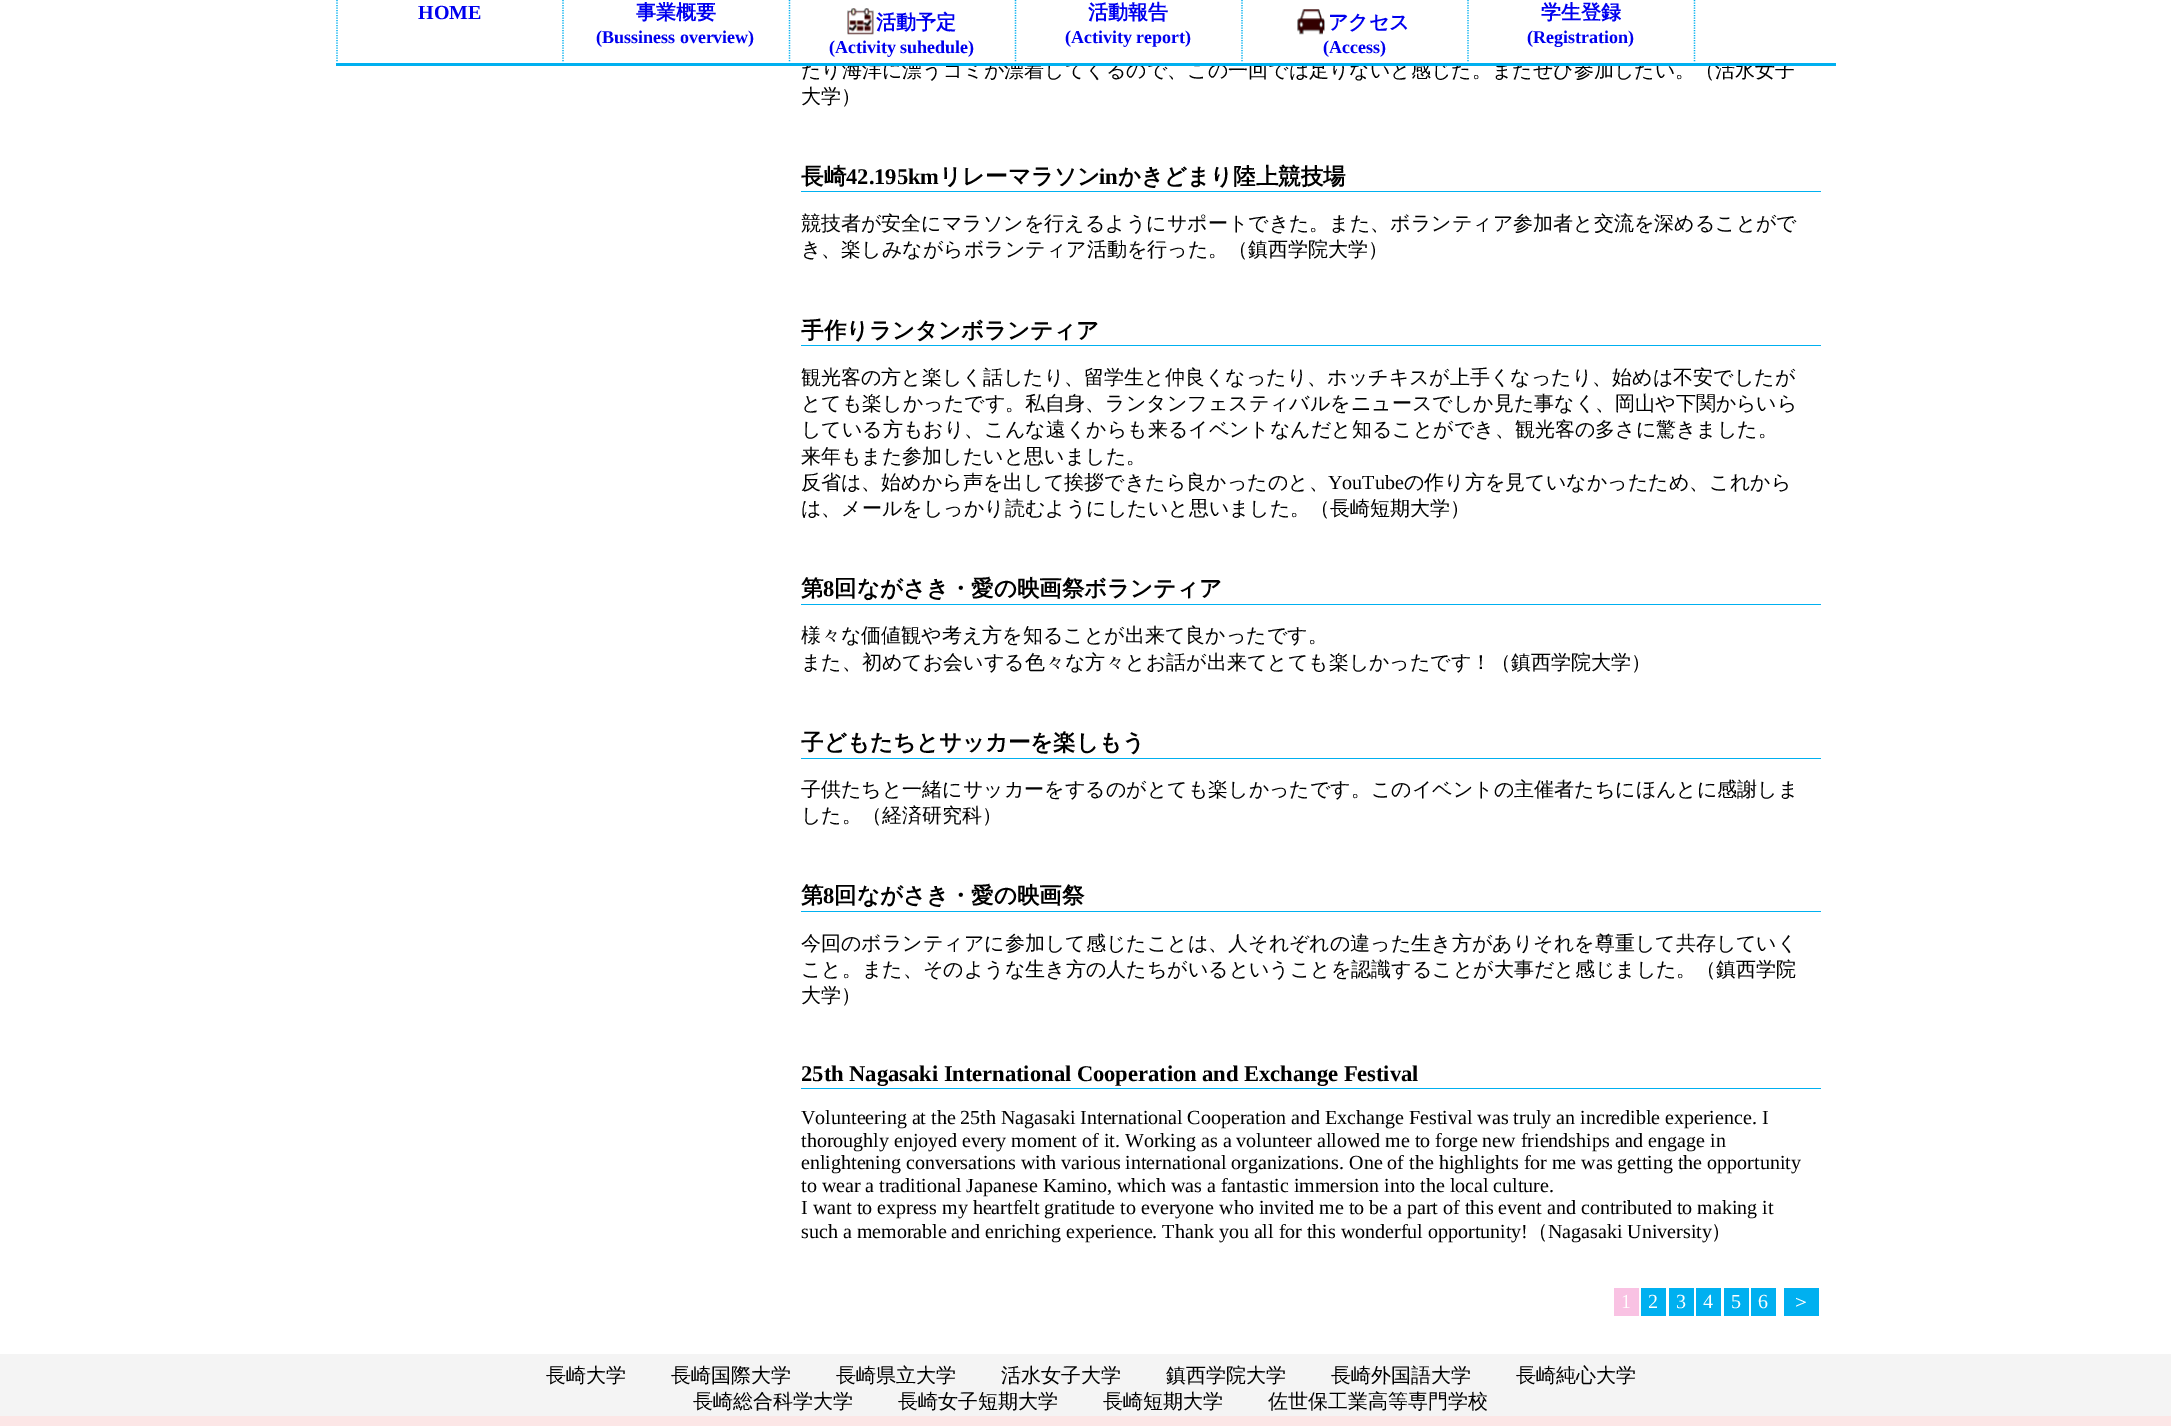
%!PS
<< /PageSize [2171 1426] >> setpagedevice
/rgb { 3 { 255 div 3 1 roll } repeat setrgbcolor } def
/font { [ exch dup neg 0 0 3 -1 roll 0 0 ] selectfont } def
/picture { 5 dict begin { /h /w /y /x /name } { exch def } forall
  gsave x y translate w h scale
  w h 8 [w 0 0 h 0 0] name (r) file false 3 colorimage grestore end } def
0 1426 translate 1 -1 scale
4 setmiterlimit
255 255 255 rgb
0 0 2171 1426 rectfill
0 176 240 rgb
1.2 setlinewidth
[1.25 1.25] 0 setdash
563 0 moveto 563 62.5 lineto stroke
337 0 moveto 337 62.5 lineto stroke
789.5 0 moveto 789.5 62.5 lineto stroke
(img/1.rgb) 847 8 27 27 picture
(img/2.rgb) 1297 9 28 26 picture
[
  [801 191 1020 1 0 176 240]
  [801 345 1020 1 0 176 240]
  [801 604 1020 1 0 176 240]
  [801 758 1020 1 0 176 240]
  [801 911 1020 1 0 176 240]
  [801 1088 1020 1 0 176 240]
  [1614 1288 25 28 249 194 227]
  [1641 1288 25 28 0 176 240]
  [1669 1288 25 28 0 176 240]
  [1696 1288 25 28 0 176 240]
  [1724 1288 25 28 0 176 240]
  [1751 1288 25 28 0 176 240]
  [1784 1288 35 28 0 176 240]
  [0 1354 2171 62 244 244 244]
  [0 1416 2171 10 252 230 230]
] { aload pop rgb rectfill } forall
/LiberationSerif-Bold 20 font
0 0 238 rgb
418 19 moveto (HOME) show
/WenQuanYiZenHei-Bold 20 font
636 19 moveto (事業概要) show
/LiberationSerif-Bold 18 font
596 43 moveto (\(Bussiness overview\)) show
/WenQuanYiZenHei-Bold 20 font
876 29 moveto (活動予定) show
/LiberationSerif-Bold 18 font
829 53 moveto (\(Activity suhedule\)) show
/WenQuanYiZenHei-Bold 20 font
1088 19 moveto (活動報告) show
/LiberationSerif-Bold 18 font
1065 43 moveto (\(Activity report\)) show
/WenQuanYiZenHei-Bold 20 font
1328 29 moveto (アクセス) show
/LiberationSerif-Bold 18 font
1323 53 moveto (\(Access\)) show
/WenQuanYiZenHei-Bold 20 font
1541 19 moveto (学生登録) show
/LiberationSerif-Bold 18 font
1527 43 moveto (\(Registration\)) show
/WenQuanYiZenHei-Medium 20 font
0 0 0 rgb
801 77 moveto (たり海洋に漂うゴミが漂着してくるので、この一回では足りないと感じた。またぜひ参加したい。（活水女子) show
255 255 255 rgb
806 60 985 5 rectfill
0 176 240 rgb
1694.5 0 moveto 1694.5 62.5 lineto stroke
1468 0 moveto 1468 62.5 lineto stroke
1242 0 moveto 1242 62.5 lineto stroke
1015.5 0 moveto 1015.5 62.5 lineto stroke
336 63 1500 3 rectfill
0 0 0 rgb
801 103 moveto (大学）) show
/WenQuanYiZenHei-Bold 22.5 font
801 184 moveto (長崎) show
/LiberationSerif-Bold 22.5 font
846 184 moveto (42.195km) show
/WenQuanYiZenHei-Bold 22.5 font
939 184 moveto (リレーマラソン) show
/LiberationSerif-Bold 22.5 font
1099 184 moveto (in) show
/WenQuanYiZenHei-Bold 22.5 font
1118 184 moveto (かきどまり陸上競技場) show
/WenQuanYiZenHei-Medium 20 font
801 230 moveto (競技者が安全にマラソンを行えるようにサポートできた。また、ボランティア参加者と交流を深めることがで) show
801 256 moveto (き、楽しみながらボランティア活動を行った。（鎮西学院大学）) show
/WenQuanYiZenHei-Bold 22.5 font
801 338 moveto (手作りランタンボランティア) show
/WenQuanYiZenHei-Medium 20 font
[
  [(観光客の方と楽しく話したり、留学生と仲良くなったり、ホッチキスが上手くなったり、始めは不安でしたが) 801 384]
  [(とても楽しかったです。私自身、ランタンフェスティバルをニュースでしか見た事なく、岡山や下関からいら) 801 410]
  [(している方もおり、こんな遠くからも来るイベントなんだと知ることができ、観光客の多さに驚きました。) 801 436]
  [(来年もまた参加したいと思いました。) 801 463]
  [(反省は、始めから声を出して挨拶できたら良かったのと、) 801 489]
] { aload pop moveto show } forall
/LiberationSerif-Regular 20 font
1328 489 moveto (YouTube) show
/WenQuanYiZenHei-Medium 20 font
1404 489 moveto (の作り方を見ていなかったため、これから) show
801 515 moveto (は、メールをしっかり読むようにしたいと思いました。（長崎短期大学）) show
/WenQuanYiZenHei-Bold 22.5 font
801 596 moveto (第) show
/LiberationSerif-Bold 22.5 font
823 596 moveto (8) show
/WenQuanYiZenHei-Bold 22.5 font
834 596 moveto (回ながさき・愛の映画祭ボランティア) show
/WenQuanYiZenHei-Medium 20 font
801 642 moveto (様々な価値観や考え方を知ることが出来て良かったです。) show
801 669 moveto (また、初めてお会いする色々な方々とお話が出来てとても楽しかったです！（鎮西学院大学）) show
/WenQuanYiZenHei-Bold 22.5 font
801 750 moveto (子どもたちとサッカーを楽しもう) show
/WenQuanYiZenHei-Medium 20 font
801 796 moveto (子供たちと一緒にサッカーをするのがとても楽しかったです。このイベントの主催者たちにほんとに感謝しま) show
801 822 moveto (した。（経済研究科）) show
/WenQuanYiZenHei-Bold 22.5 font
801 903 moveto (第) show
/LiberationSerif-Bold 22.5 font
823 903 moveto (8) show
/WenQuanYiZenHei-Bold 22.5 font
834 903 moveto (回ながさき・愛の映画祭) show
/WenQuanYiZenHei-Medium 20 font
[
  [(今回のボランティアに参加して感じたことは、人それぞれの違った生き方がありそれを尊重して共存していく) 801 950]
  [(こと。また、そのような生き方の人たちがいるということを認識することが大事だと感じました。（鎮西学院) 801 976]
  [(大学）) 801 1002]
] { aload pop moveto show } forall
/LiberationSerif-Bold 22.5 font
801 1081 moveto (25th Nagasaki International Cooperation and Exchange Festival) show
/LiberationSerif-Regular 20 font
[
  [(Volunteering at the 25th Nagasaki International Cooperation and Exchange Festival was truly an incredible experience. I) 801 1124]
  [(thoroughly enjoyed every moment of it. Working as a volunteer allowed me to forge new friendships and engage in) 801 1147]
  [(enlightening conversations with various international organizations. One of the highlights for me was getting the opportunity) 801 1169]
  [(to wear a traditional Japanese Kamino, which was a fantastic immersion into the local culture.) 801 1192]
  [(I want to express my heartfelt gratitude to everyone who invited me to be a part of this event and contributed to making it) 801 1214]
  [(such a memorable and enriching experience. Thank you all for this wonderful opportunity!) 801 1238]
] { aload pop moveto show } forall
/WenQuanYiZenHei-Medium 20 font
1528 1238 moveto (（) show
/LiberationSerif-Regular 20 font
1548 1238 moveto (Nagasaki University) show
/WenQuanYiZenHei-Medium 20 font
1711 1238 moveto (）) show
/LiberationSerif-Regular 20 font
255 255 255 rgb
[
  [(1) 1621 1308]
  [(2) 1648 1308]
  [(3) 1676 1308]
  [(4) 1703 1308]
  [(5) 1731 1308]
  [(6) 1758 1308]
] { aload pop moveto show } forall
/WenQuanYiZenHei-Medium 20 font
1791 1308 moveto (＞) show
0 0 0 rgb
[
  [(長崎大学) 546 1382]
  [(長崎国際大学) 671 1382]
  [(長崎県立大学) 836 1382]
  [(活水女子大学) 1001 1382]
  [(鎮西学院大学) 1166 1382]
  [(長崎外国語大学) 1331 1382]
  [(長崎純心大学) 1516 1382]
  [(長崎総合科学大学) 693 1408]
  [(長崎女子短期大学) 898 1408]
  [(長崎短期大学) 1103 1408]
  [(佐世保工業高等専門学校) 1268 1408]
] { aload pop moveto show } forall
showpage
